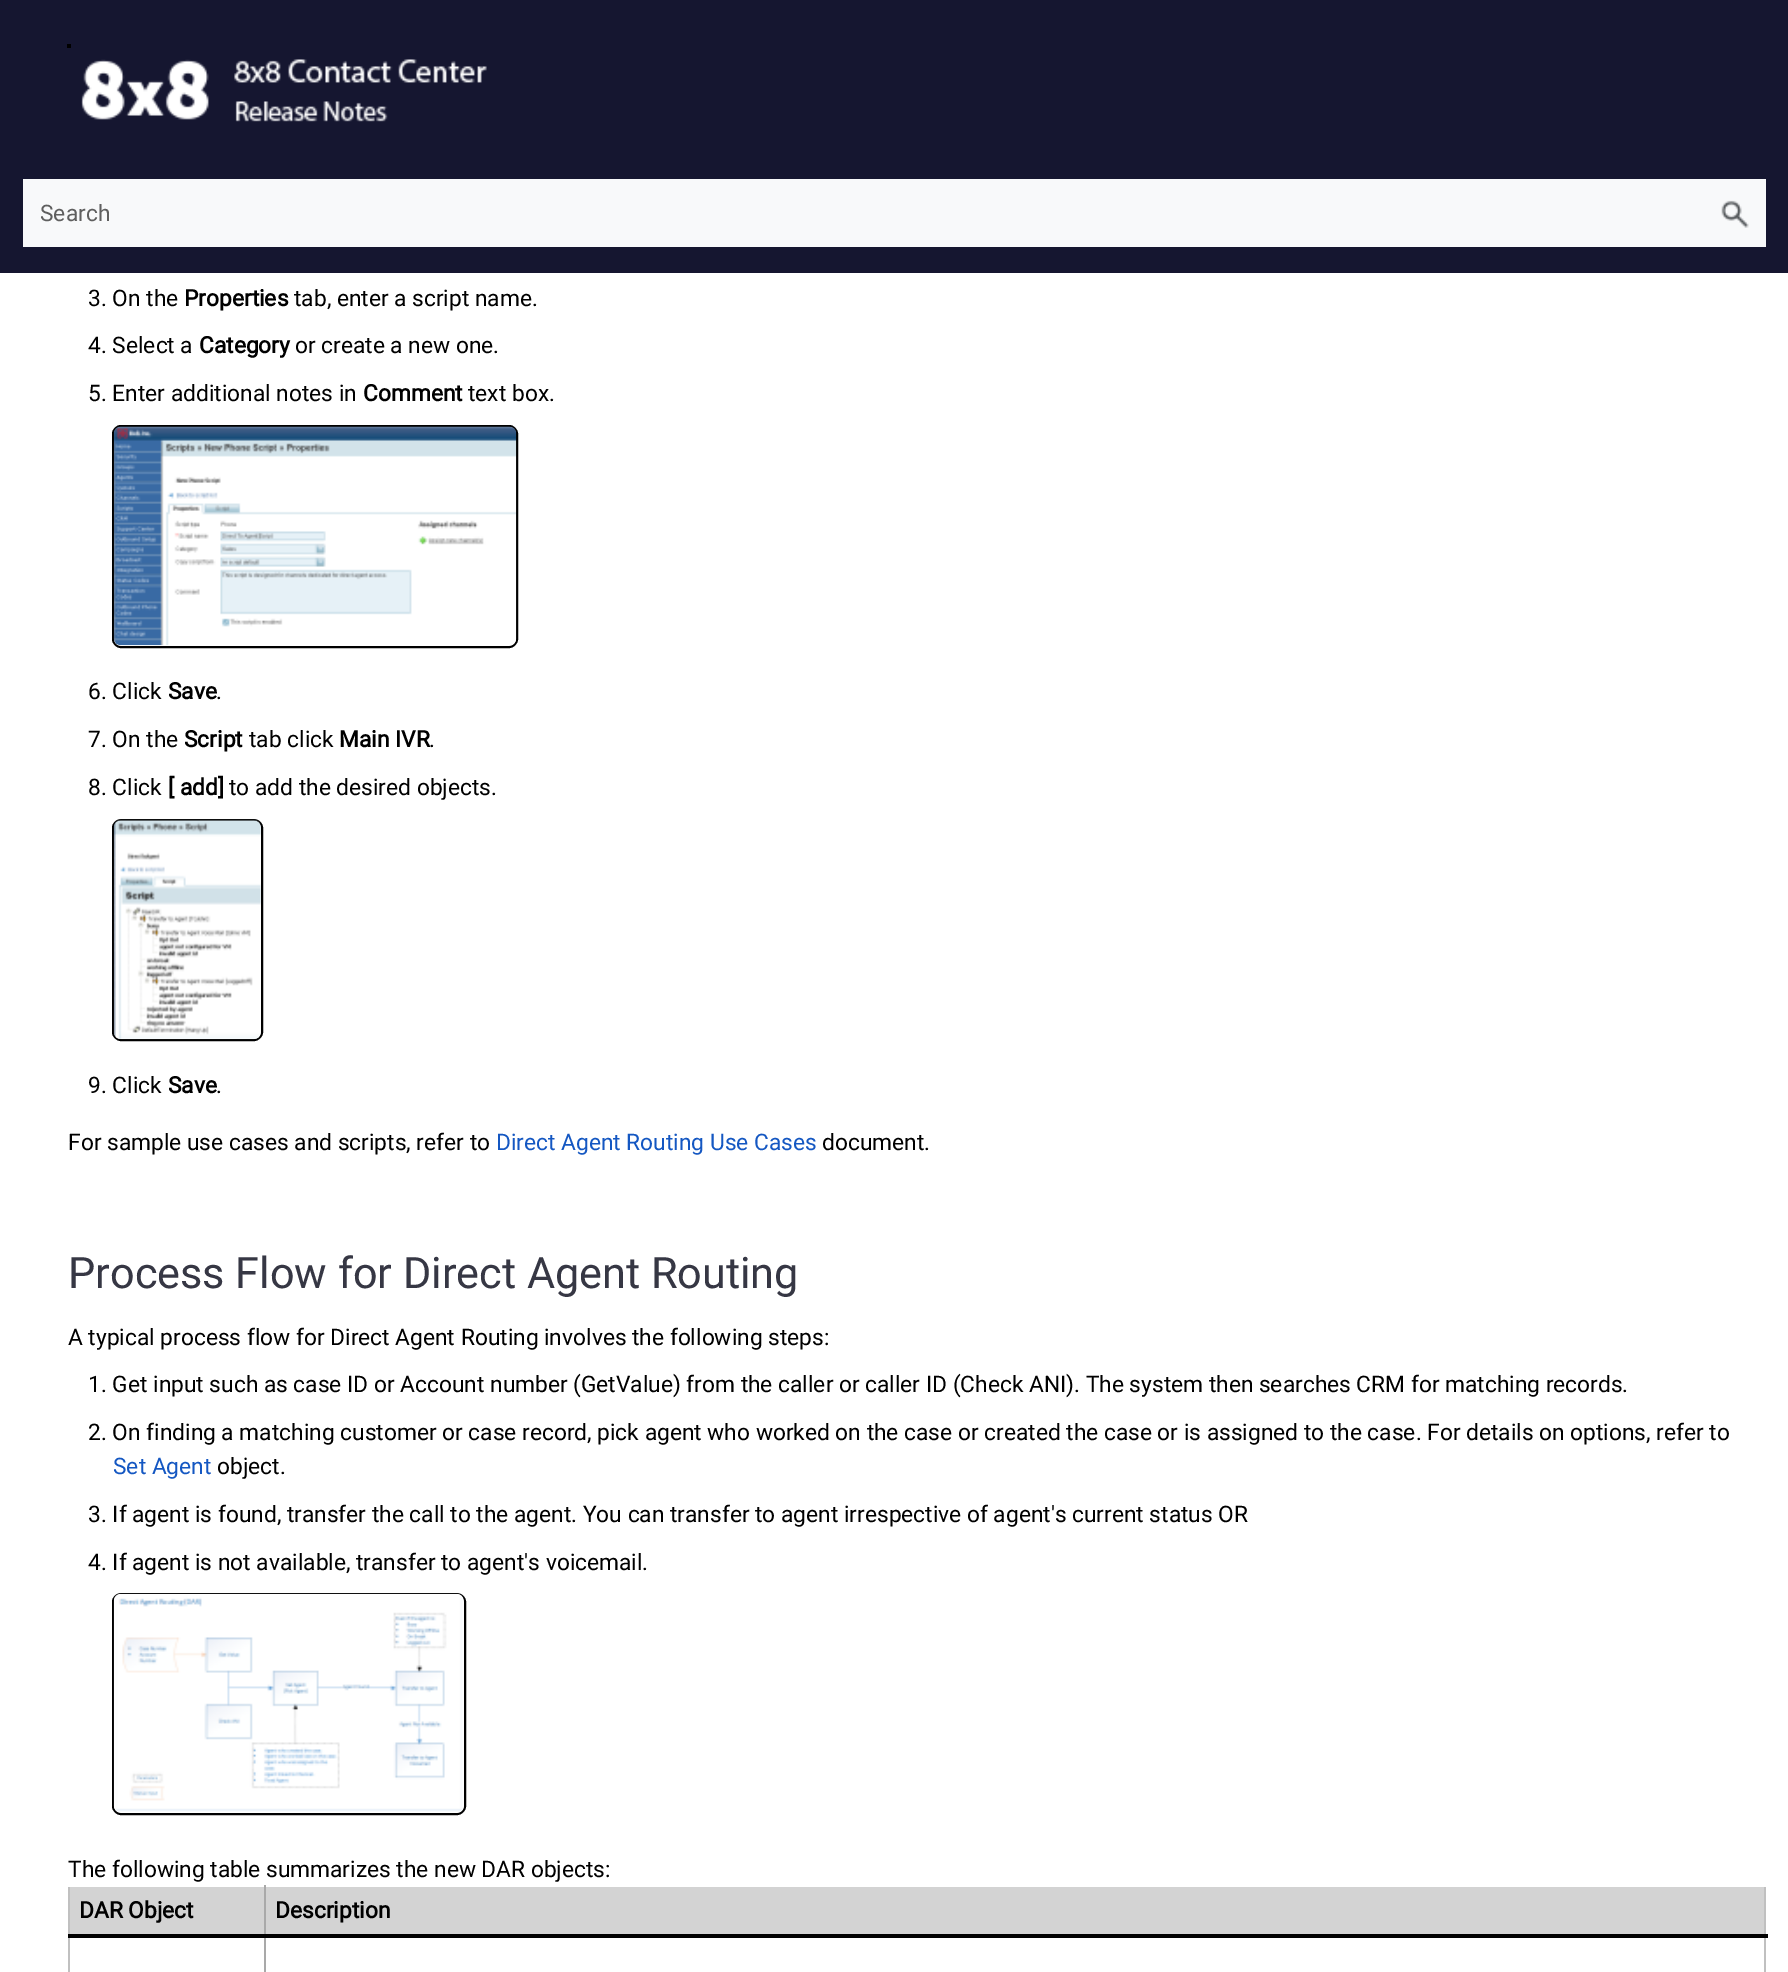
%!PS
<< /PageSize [1788 1972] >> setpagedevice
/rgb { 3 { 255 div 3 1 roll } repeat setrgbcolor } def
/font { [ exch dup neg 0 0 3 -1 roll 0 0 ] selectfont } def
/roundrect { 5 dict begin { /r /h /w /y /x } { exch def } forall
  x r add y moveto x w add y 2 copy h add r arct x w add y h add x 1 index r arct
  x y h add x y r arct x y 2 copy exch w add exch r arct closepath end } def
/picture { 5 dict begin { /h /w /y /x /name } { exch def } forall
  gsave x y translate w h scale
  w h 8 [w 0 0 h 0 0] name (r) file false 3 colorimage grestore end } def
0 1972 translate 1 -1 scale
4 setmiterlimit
255 255 255 rgb
0 0 1788 1972 rectfill
21 22 48 rgb
0 0 1788 273 rectfill
(img/1.rgb) 81 59 406 63 picture
0 0 0 rgb
67 44 4 4 rectfill
248 249 250 rgb
23 179 1743 68 rectfill
(img/2.rgb) 1721 200 28 28 picture
0 0 0 rgb
2 setlinewidth
113 426 404 221 8 roundrect stroke
(img/3.rgb) 113 426 404 220 picture
113 820 149 220 8 roundrect stroke
(img/4.rgb) 113 819 148 221 picture
113 1594 352 220 8 roundrect stroke
(img/5.rgb) 113 1593 351 220 picture
[
  [1764 1887 2 85 192 192 192]
  [68 1887 2 85 192 192 192]
  [264 1885 2 87 169 169 169]
  [70 1887 194 47 211 211 211]
  [266 1887 1498 47 211 211 211]
  [68 1934 1700 4 0 0 0]
] { aload pop rgb rectfill } forall
/Roboto-Regular 22.75 font
95 95 95 rgb
40 221 moveto (Search) show
0 0 0 rgb
88 306 moveto (3. On the) show
/Roboto-Bold 22.75 font
184 306 moveto (Properties) show
/Roboto-Regular 22.75 font
294 306 moveto (tab, enter a script name.) show
88 353 moveto (4. Select a) show
/Roboto-Bold 22.75 font
199 353 moveto (Category) show
/Roboto-Regular 22.75 font
295 353 moveto (or create a new one.) show
88 401 moveto (5. Enter additional notes in) show
/Roboto-Bold 22.75 font
363 401 moveto (Comment) show
/Roboto-Regular 22.75 font
468 401 moveto (text box.) show
88 699 moveto (6. Click) show
/Roboto-Bold 22.75 font
168 699 moveto (Save) show
/Roboto-Regular 22.75 font
216 699 moveto (.) show
88 747 moveto (7. On the) show
/Roboto-Bold 22.75 font
184 747 moveto (Script) show
/Roboto-Regular 22.75 font
249 747 moveto (tab click) show
/Roboto-Bold 22.75 font
339 747 moveto (Main IVR) show
/Roboto-Regular 22.75 font
429 747 moveto (.) show
88 795 moveto (8. Click) show
/Roboto-Bold 22.75 font
168 795 moveto ([ add]) show
/Roboto-Regular 22.75 font
229 795 moveto (to add the desired objects.) show
88 1093 moveto (9. Click) show
/Roboto-Bold 22.75 font
168 1093 moveto (Save) show
/Roboto-Regular 22.75 font
216 1093 moveto (.) show
68 1150 moveto (For sample use cases and scripts, refer to) show
20 87 194 rgb
496 1150 moveto (Direct Agent Routing Use Cases) show
0 0 0 rgb
822 1150 moveto (document.) show
/Roboto-Regular 43.25 font
54 55 68 rgb
68 1288 moveto (Process Flow for Direct Agent Routing) show
/Roboto-Regular 22.75 font
0 0 0 rgb
[
  [(A typical process flow for Direct Agent Routing involves the following steps:) 68 1345]
  [(1. Get input such as case ID or Account number \(GetValue\) from the caller or caller ID \(Check ANI\). The system then searches CRM for matching records.) 88 1392]
  [(2. On finding a matching customer or case record, pick agent who worked on the case or created the case or is assigned to the case. For details on options, refer to) 88 1440]
] { aload pop moveto show } forall
20 87 194 rgb
113 1474 moveto (Set Agent) show
0 0 0 rgb
[
  [(object.) 217 1474]
  [(3. If agent is found, transfer the call to the agent. You can transfer to agent irrespective of agent's current status OR) 88 1522]
  [(4. If agent is not available, transfer to agent's voicemail.) 88 1570]
  [(The following table summarizes the new DAR objects:) 68 1877]
] { aload pop moveto show } forall
/Roboto-Bold 22.75 font
79 1918 moveto (DAR Object) show
275 1918 moveto (Description) show
showpage
